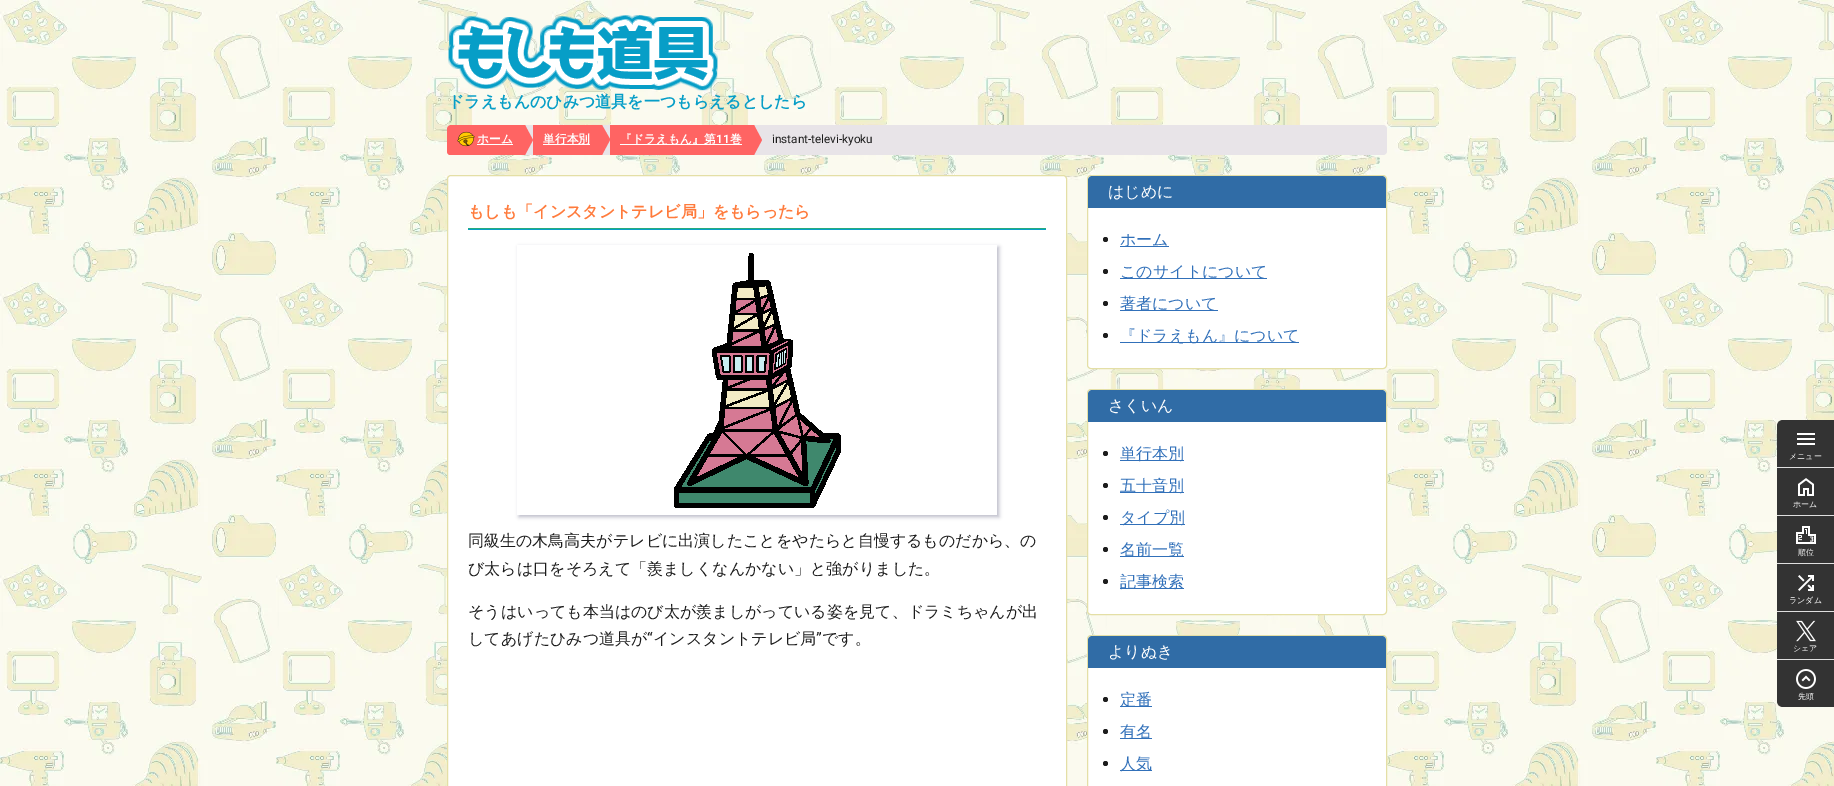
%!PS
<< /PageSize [1834 786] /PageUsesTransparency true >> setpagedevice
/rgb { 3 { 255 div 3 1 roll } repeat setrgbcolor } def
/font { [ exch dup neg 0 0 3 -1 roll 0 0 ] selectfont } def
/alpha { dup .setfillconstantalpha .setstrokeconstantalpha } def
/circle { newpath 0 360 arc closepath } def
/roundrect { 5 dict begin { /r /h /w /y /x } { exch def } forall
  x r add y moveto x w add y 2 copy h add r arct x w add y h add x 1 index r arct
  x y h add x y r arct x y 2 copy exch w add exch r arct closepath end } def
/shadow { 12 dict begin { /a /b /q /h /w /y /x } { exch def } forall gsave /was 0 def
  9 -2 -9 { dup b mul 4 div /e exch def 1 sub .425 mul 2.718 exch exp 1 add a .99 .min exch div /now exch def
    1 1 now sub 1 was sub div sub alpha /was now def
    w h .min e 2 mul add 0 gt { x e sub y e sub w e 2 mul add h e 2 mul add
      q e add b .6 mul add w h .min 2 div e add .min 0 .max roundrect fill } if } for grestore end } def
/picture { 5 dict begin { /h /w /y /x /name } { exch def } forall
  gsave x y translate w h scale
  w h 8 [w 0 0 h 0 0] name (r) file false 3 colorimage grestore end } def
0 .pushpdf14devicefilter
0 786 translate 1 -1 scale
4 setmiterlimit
255 255 255 rgb
0 0 1834 786 rectfill
(img/1.rgb) 0 0 1834 786 picture
(img/2.rgb) 448 15 270 76 picture
232 228 232 rgb
447 125 940 30 4 roundrect fill
255 100 99 rgb
451 125 moveto 525 125 lineto 533 140 lineto 525 155 lineto 449 155 lineto 448 154 447 153 447 151 curveto 447 129 lineto 447 127 449 125 451 125 curveto closepath fill
(img/3.rgb) 457 131 18 16 picture
255 255 255 rgb
477 144 36 1 rectfill
255 100 99 rgb
533 125 moveto 533 155 lineto 602 155 lineto 610 140 lineto 610 139 lineto 602 125 lineto closepath fill
255 255 255 rgb
543 144 47 1 rectfill
255 100 99 rgb
610 125 moveto 610 155 lineto 754 155 lineto 762 140 lineto 754 125 lineto closepath fill
255 255 255 rgb
620 144 122 1 rectfill
447.5 175.5 619 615 3.5 roundrect gsave fill grestore
228 223 166 rgb
stroke
7 158 199 rgb
468 229 578 1 rectfill
40 171 125 rgb
468 228 578 1 rectfill
gsave
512 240 moveto 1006 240 lineto 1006 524 lineto 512 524 lineto closepath 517 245 moveto 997 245 lineto 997 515 lineto 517 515 lineto closepath eoclip newpath
186 186 198 rgb
519 247 480 270 0 2 1 shadow
grestore
(img/4.rgb) 674 253 167 255 picture
255 255 255 rgb
1087.5 175.5 299 193 3.5 roundrect gsave fill grestore
228 223 166 rgb
stroke
48 108 166 rgb
1092 176 moveto 1382 176 lineto 1384 176 1386 178 1386 180 curveto 1386 208 lineto 1088 208 lineto 1088 180 lineto 1088 178 1090 176 1092 176 curveto closepath fill
28 28 28 rgb
1105.5 239.5 2.5 circle fill
49 112 185 rgb
1120 246 49 1 rectfill
28 28 28 rgb
1105.5 271.5 2.5 circle fill
49 112 185 rgb
1120 278 147 1 rectfill
28 28 28 rgb
1105.5 303.5 2.5 circle fill
49 112 185 rgb
1120 310 98 1 rectfill
28 28 28 rgb
1105.5 335.5 2.5 circle fill
49 112 185 rgb
1120 342 179 1 rectfill
255 255 255 rgb
1087.5 389.5 299 225 3.5 roundrect gsave fill grestore
228 223 166 rgb
stroke
48 108 166 rgb
1092 390 moveto 1382 390 lineto 1384 390 1386 392 1386 394 curveto 1386 422 lineto 1088 422 lineto 1088 394 lineto 1088 392 1090 390 1092 390 curveto closepath fill
28 28 28 rgb
1105.5 453.5 2.5 circle fill
49 112 185 rgb
1120 460 64 1 rectfill
28 28 28 rgb
1105.5 485.5 2.5 circle fill
49 112 185 rgb
1120 492 64 1 rectfill
28 28 28 rgb
1105.5 517.5 2.5 circle fill
49 112 185 rgb
1120 524 65 1 rectfill
28 28 28 rgb
1105.5 549.5 2.5 circle fill
49 112 185 rgb
1120 556 64 1 rectfill
28 28 28 rgb
1105.5 581.5 2.5 circle fill
49 112 185 rgb
1120 588 64 1 rectfill
255 255 255 rgb
1087.5 635.5 299 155 3.5 roundrect gsave fill grestore
228 223 166 rgb
stroke
48 108 166 rgb
1092 636 moveto 1382 636 lineto 1384 636 1386 638 1386 640 curveto 1386 668 lineto 1088 668 lineto 1088 640 lineto 1088 638 1090 636 1092 636 curveto closepath fill
28 28 28 rgb
1105.5 699.5 2.5 circle fill
49 112 185 rgb
1120 706 32 1 rectfill
28 28 28 rgb
1105.5 731.5 2.5 circle fill
49 112 185 rgb
1120 738 32 1 rectfill
28 28 28 rgb
1105.5 763.5 2.5 circle fill
49 112 185 rgb
1120 770 32 1 rectfill
223 223 223 rgb
1777 467 57 1 rectfill
51 51 51 rgb
1783 420 moveto 1834 420 lineto 1834 467 lineto 1777 467 lineto 1777 426 lineto 1777 422.5 1779.5 420 1783 420 curveto closepath fill
(img/5.rgb) 1797 433 18 12 picture
223 223 223 rgb
1777 515 57 1 rectfill
51 51 51 rgb
1777 468 57 47 rectfill
(img/6.rgb) 1798 478 16 18 picture
223 223 223 rgb
1777 563 57 1 rectfill
51 51 51 rgb
1777 516 57 47 rectfill
(img/7.rgb) 1796 526 20 18 picture
223 223 223 rgb
1777 611 57 1 rectfill
51 51 51 rgb
1777 564 57 47 rectfill
(img/8.rgb) 1798 575 16 16 picture
223 223 223 rgb
1777 659 57 1 rectfill
51 51 51 rgb
1777 612 57 47 rectfill
(img/9.rgb) 1796 620 20 22 picture
1777 660 moveto 1834 660 lineto 1834 707 lineto 1783 707 lineto 1779.5 707 1777 704.5 1777 701 curveto closepath fill
(img/10.rgb) 1796 669 20 20 picture
/WenQuanYiZenHei-Bold 16 font
7 158 199 rgb
448 107 moveto (ドラえもんのひみつ道具を一つもらえるとしたら) show
/WenQuanYiZenHei-Bold 11.75 font
255 255 255 rgb
[
  [(ホーム) 477 143]
  [(単行本別) 543 143]
  [(『ドラえもん』第) 620 143]
] { aload pop moveto show } forall
/Roboto-Bold 11.75 font
716 143 moveto (11) show
/WenQuanYiZenHei-Bold 11.75 font
730 143 moveto (巻) show
/Roboto-Regular 11.75 font
28 28 28 rgb
772 143 moveto (instant-televi-kyoku) show
/WenQuanYiZenHei-Bold 16 font
255 123 60 rgb
468 217 moveto (もしも「インスタントテレビ局」をもらったら) show
/WenQuanYiZenHei-Medium 16 font
28 28 28 rgb
[
  [(同級生の木鳥高夫がテレビに出演したことをやたらと自慢するものだから、の) 468 546]
  [(び太らは口をそろえて「羨ましくなんかない」と強がりました。) 468 574]
  [(そうはいっても本当はのび太が羨ましがっている姿を見て、ドラミちゃんが出) 468 617]
  [(してあげたひみつ道具が) 468 644]
] { aload pop moveto show } forall
/Roboto-Regular 16 font
647 644 moveto (“) show
/WenQuanYiZenHei-Medium 16 font
653 644 moveto (インスタントテレビ局) show
/Roboto-Regular 16 font
816 644 moveto (”) show
/WenQuanYiZenHei-Medium 16 font
822 644 moveto (です。) show
255 255 255 rgb
1108 197 moveto (はじめに) show
49 112 185 rgb
[
  [(ホーム) 1120 245]
  [(このサイトについて) 1120 277]
  [(著者について) 1120 309]
  [(『ドラえもん』について) 1120 341]
] { aload pop moveto show } forall
255 255 255 rgb
1108 411 moveto (さくいん) show
49 112 185 rgb
[
  [(単行本別) 1120 459]
  [(五十音別) 1120 491]
  [(タイプ別) 1120 523]
  [(名前一覧) 1120 555]
  [(記事検索) 1120 587]
] { aload pop moveto show } forall
255 255 255 rgb
1108 657 moveto (よりぬき) show
49 112 185 rgb
[
  [(定番) 1120 705]
  [(有名) 1120 737]
  [(人気) 1120 769]
] { aload pop moveto show } forall
/WenQuanYiZenHei-Medium 8 font
255 255 255 rgb
[
  [(メニュー) 1789 459]
  [(ホーム) 1793 507]
  [(順位) 1798 555]
  [(ランダム) 1789 603]
  [(シェア) 1793 651]
  [(先頭) 1798 699]
] { aload pop moveto show } forall
.poppdf14devicefilter showpage
